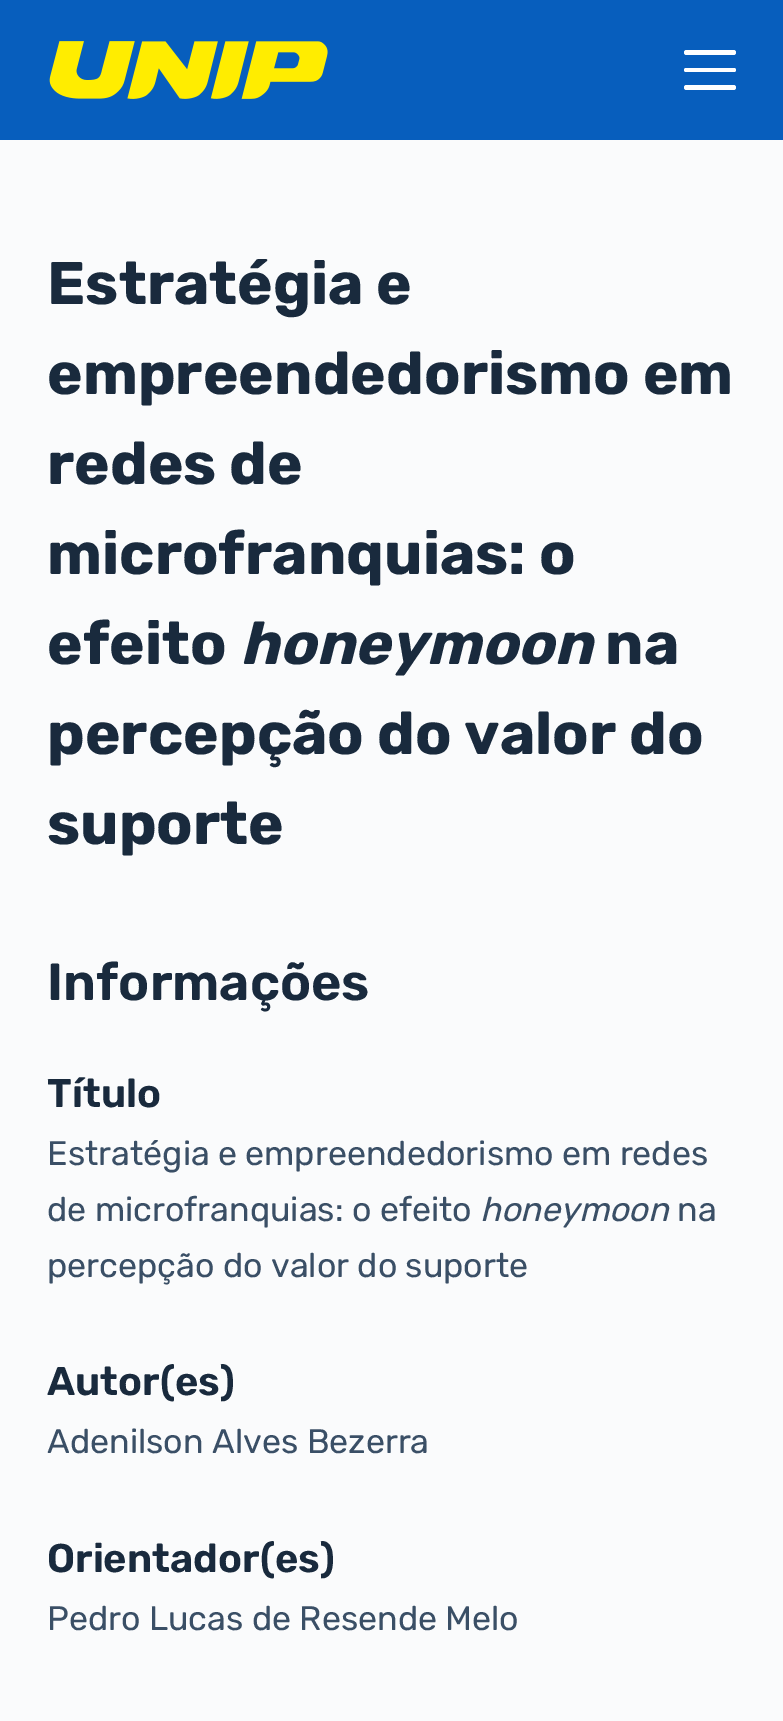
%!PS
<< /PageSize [783 1721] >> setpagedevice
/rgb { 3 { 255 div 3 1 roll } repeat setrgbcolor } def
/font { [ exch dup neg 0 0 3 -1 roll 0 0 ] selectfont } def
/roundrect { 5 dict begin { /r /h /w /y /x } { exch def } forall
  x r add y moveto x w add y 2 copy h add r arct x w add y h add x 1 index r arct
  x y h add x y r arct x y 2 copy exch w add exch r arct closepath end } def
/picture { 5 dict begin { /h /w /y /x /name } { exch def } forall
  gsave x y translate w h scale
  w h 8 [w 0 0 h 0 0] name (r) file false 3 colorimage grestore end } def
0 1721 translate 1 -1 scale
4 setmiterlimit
250 251 252 rgb
0 0 783 1721 rectfill
7 94 189 rgb
0 0 783 140 rectfill
(img/1.rgb) 49 41 279 58 picture
255 255 255 rgb
684 50 52 5 2.5 roundrect fill
684 68 52 4 2 roundrect fill
684 85 52 5 2.5 roundrect fill
/Rubik-Bold 60 font
25 42 61 rgb
[
  [(Estratégia e) 47 304]
  [(empreendedorismo em) 47 394]
  [(redes de) 47 484]
  [(microfranquias: o) 47 574]
  [(efeito) 47 664]
] { aload pop moveto show } forall
/Rubik-BoldItalic 60 font
240 664 moveto (honeymoon) show
/Rubik-Bold 60 font
[
  [(na) 605 664]
  [(percepção do valor do) 47 754]
  [(suporte) 47 844]
] { aload pop moveto show } forall
/Rubik-SemiBold 52 font
47 1000 moveto (Informações) show
/Rubik-SemiBold 40 font
47 1107 moveto (Título) show
/Rubik-Regular 34 font
58 79 102 rgb
47 1165 moveto (Estratégia e empreendedorismo em redes) show
47 1221 moveto (de microfranquias: o efeito) show
/Rubik-Italic 34 font
480 1221 moveto (honeymoon) show
/Rubik-Regular 34 font
677 1221 moveto (na) show
47 1277 moveto (percepção do valor do suporte) show
/Rubik-SemiBold 40 font
25 42 61 rgb
47 1395 moveto (Autor\(es\)) show
/Rubik-Regular 34 font
58 79 102 rgb
47 1453 moveto (Adenilson Alves Bezerra) show
/Rubik-SemiBold 40 font
25 42 61 rgb
47 1572 moveto (Orientador\(es\)) show
/Rubik-Regular 34 font
58 79 102 rgb
47 1630 moveto (Pedro Lucas de Resende Melo) show
showpage
